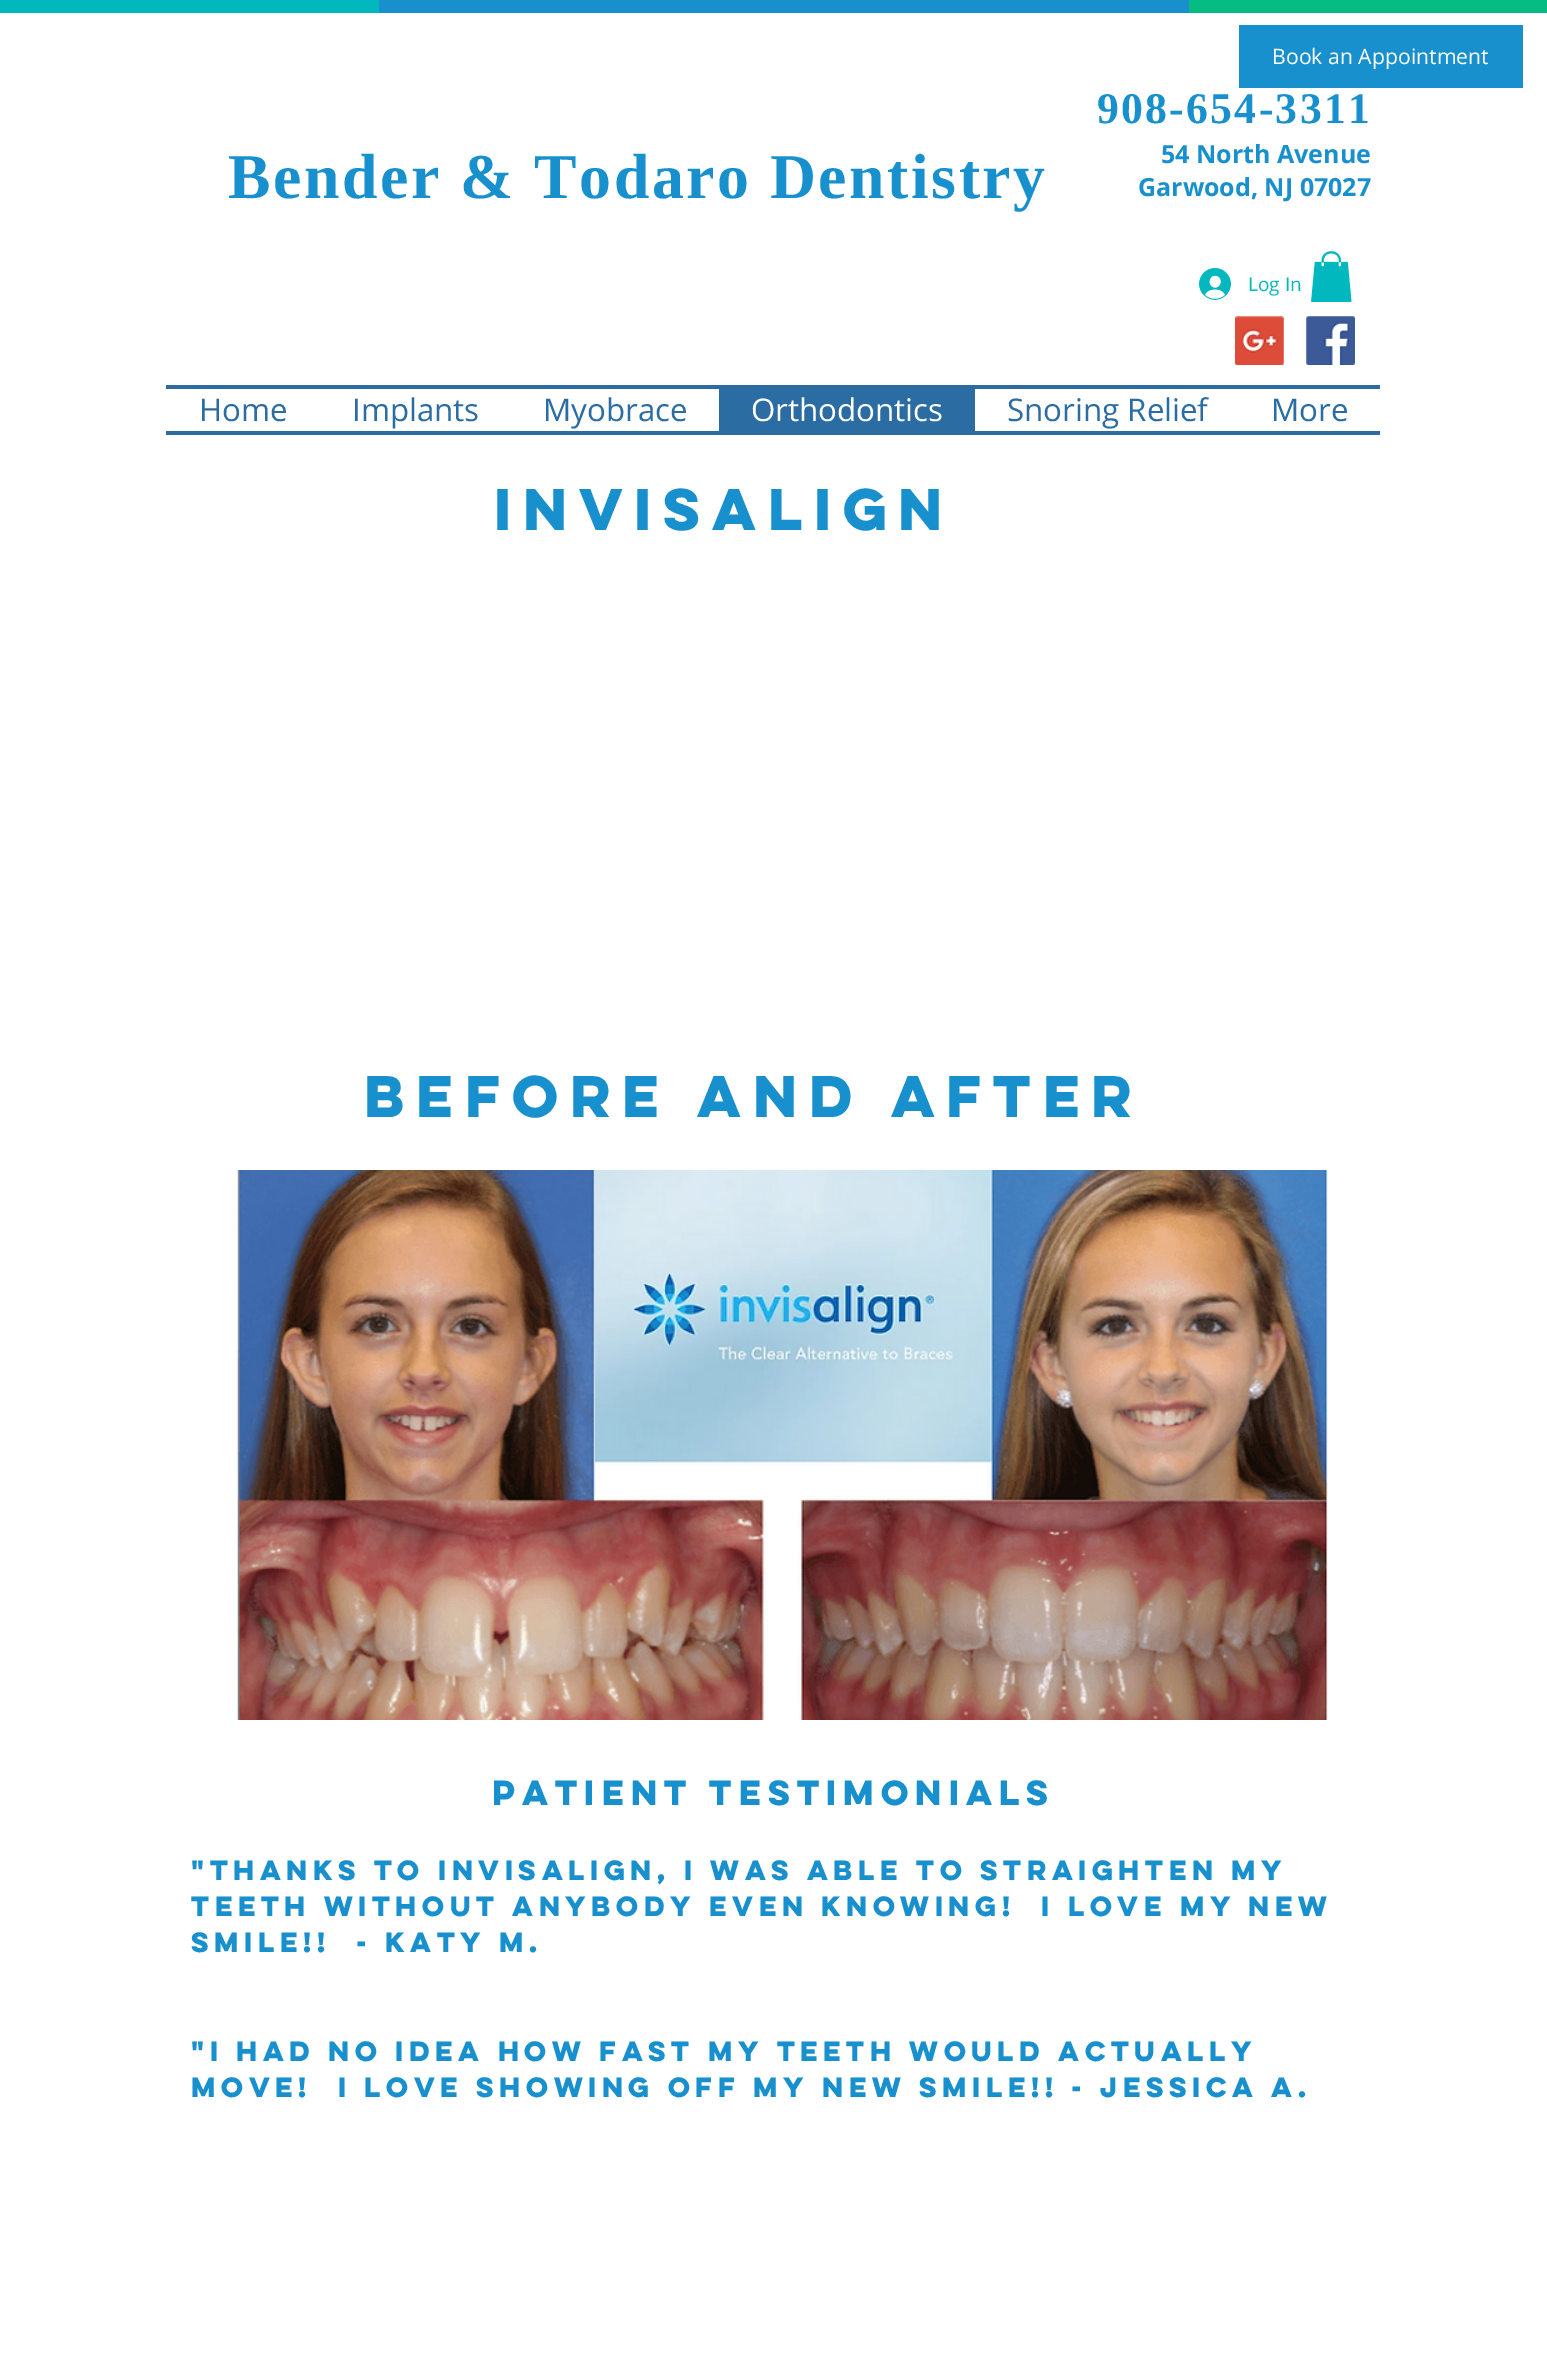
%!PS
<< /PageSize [1547 2380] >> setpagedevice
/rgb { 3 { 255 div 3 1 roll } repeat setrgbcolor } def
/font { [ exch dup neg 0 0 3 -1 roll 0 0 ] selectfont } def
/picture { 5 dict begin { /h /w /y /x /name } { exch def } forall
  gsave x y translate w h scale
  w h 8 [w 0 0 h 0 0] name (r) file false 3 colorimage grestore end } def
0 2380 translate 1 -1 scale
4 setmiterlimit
255 255 255 rgb
0 0 1547 2380 rectfill
[
  [1239 25 284 63 25 144 206]
  [0 0 379 13 2 184 191]
  [379 0 810 13 25 144 206]
  [1189 0 358 13 7 188 131]
] { aload pop rgb rectfill } forall
(img/1.rgb) 1199 268 32 32 picture
(img/2.rgb) 1311 251 41 51 picture
(img/3.rgb) 1235 316 49 49 picture
(img/4.rgb) 1306 316 49 49 picture
[
  [166 385 1214 4 43 108 163]
  [166 431 1214 4 43 108 163]
  [719 389 256 42 43 108 163]
] { aload pop rgb rectfill } forall
(img/5.rgb) 237 1170 1091 550 picture
/OpenSans-Regular 21.25 font
255 255 255 rgb
1272 64 moveto (Book an Appointment) show
/LiberationSerif-Bold 63.75 font
25 144 206 rgb
228 198 moveto 2.55 0 (Bender & Todaro Dentistry) ashow
/LiberationSerif-Bold 43.75 font
1097 123 moveto 2.25 0 (908-654-3311) ashow
/OpenSans-Bold 25 font
1161 163 moveto (54 North Avenue) show
1138 196 moveto (Garwood, NJ 07027) show
/OpenSans-Regular 19 font
2 184 191 rgb
1248 291 moveto (Log In) show
/OpenSans-Regular 31.25 font
43 108 163 rgb
[
  [(Home) 199 421]
  [(Implants) 352 421]
  [(Myobrace) 543 421]
] { aload pop moveto show } forall
255 255 255 rgb
751 421 moveto (Orthodontics) show
43 108 163 rgb
1007 421 moveto (Snoring Relief) show
1271 421 moveto (More) show
/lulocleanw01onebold-Bold 52.5 font
25 144 206 rgb
494 530 moveto (Invisalign) show
364 1117 moveto (before and After) show
/lulocleanw01onebold-Bold 31.25 font
492 1805 moveto (Patient Testimonials) show
/lulocleanw01onebold-Bold 25 font
[
  [("Thanks to Invisalign, I was able to straighten my) 191 1880]
  [(teeth without anybody even knowing!  I Love my new) 191 1916]
  [(smile!!  - Katy M.) 191 1952]
  [("I had no idea how fast my teeth would actually) 191 2061]
  [(move!  I love showing off my new smile!! - Jessica A.) 191 2097]
] { aload pop moveto show } forall
showpage
